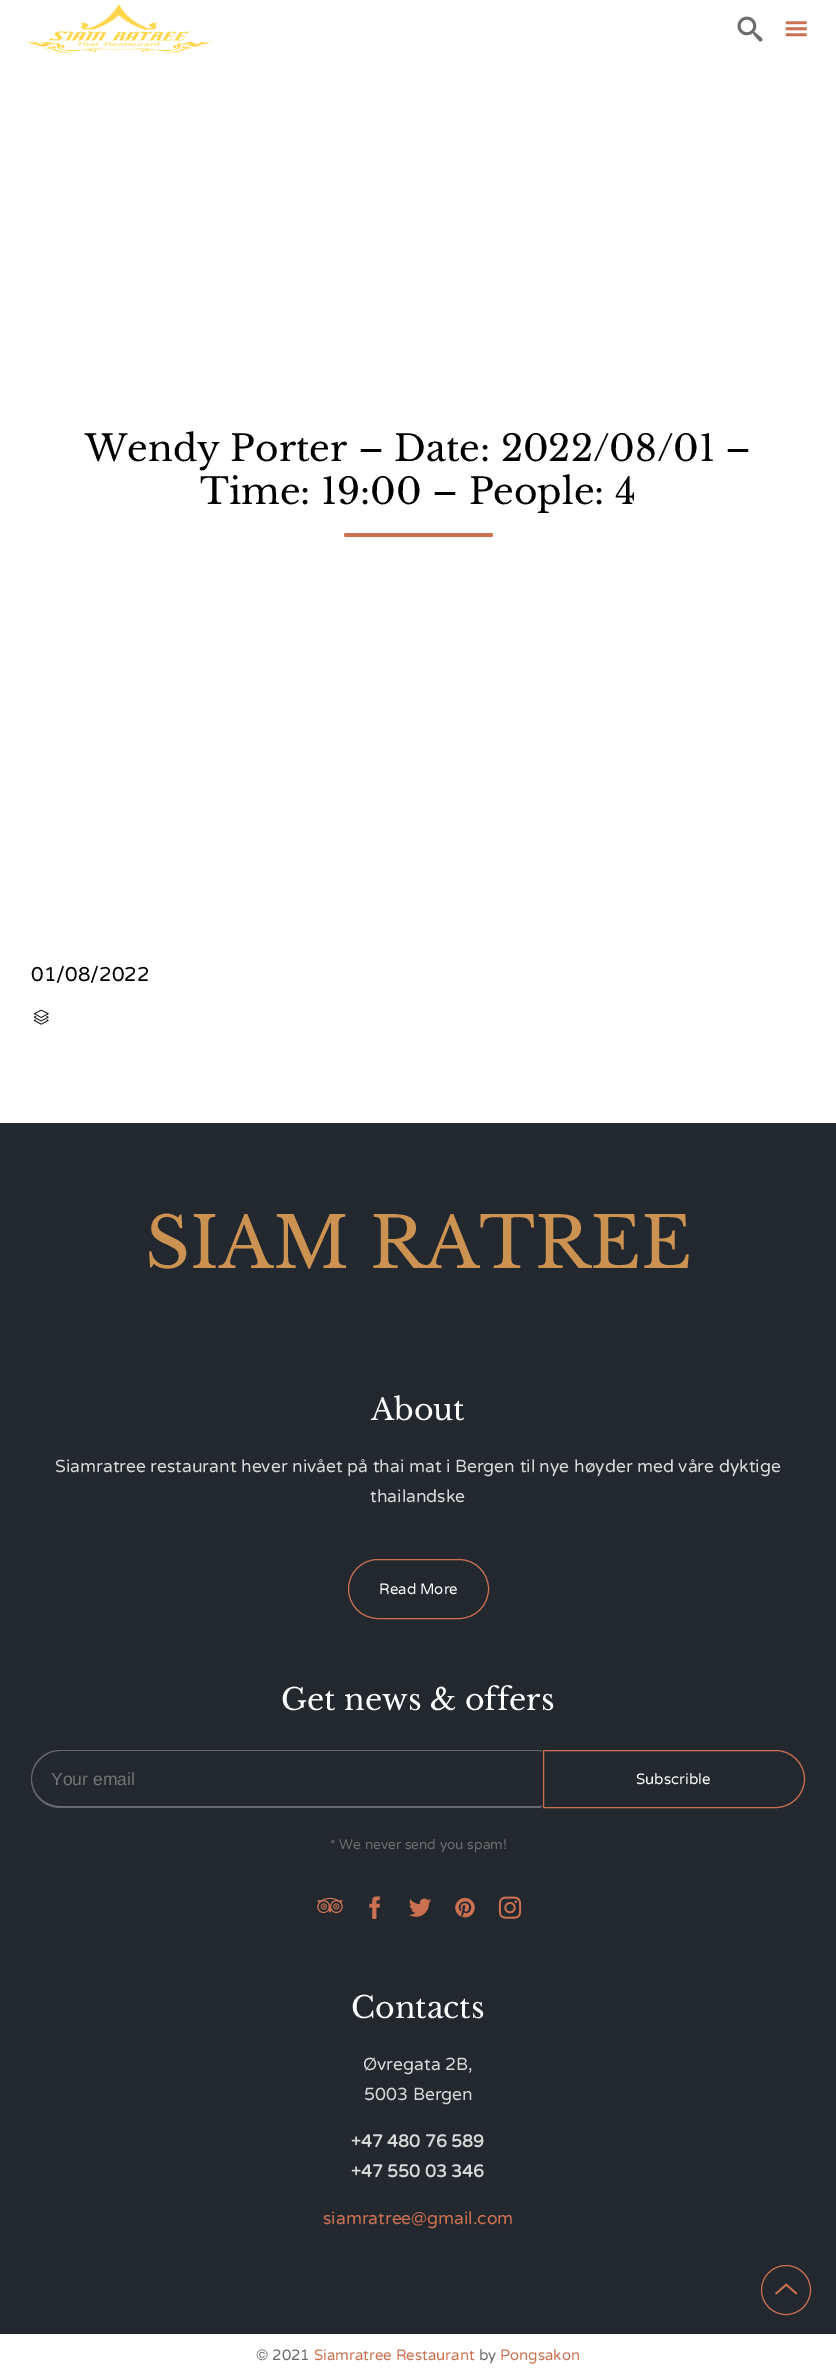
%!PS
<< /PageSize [836 2377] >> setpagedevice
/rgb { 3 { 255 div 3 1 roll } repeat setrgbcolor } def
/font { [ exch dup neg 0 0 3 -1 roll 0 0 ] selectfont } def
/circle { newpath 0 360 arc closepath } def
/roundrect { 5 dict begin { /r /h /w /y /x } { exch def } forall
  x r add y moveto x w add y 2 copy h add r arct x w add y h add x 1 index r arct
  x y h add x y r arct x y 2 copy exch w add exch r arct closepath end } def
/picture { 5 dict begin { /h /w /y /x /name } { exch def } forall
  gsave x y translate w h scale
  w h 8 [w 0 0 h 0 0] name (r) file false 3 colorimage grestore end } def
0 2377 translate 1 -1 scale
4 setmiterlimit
255 255 255 rgb
0 0 836 2377 rectfill
(img/1.rgb) 25 3 188 50 picture
(img/2.rgb) 737 16 26 26 picture
(img/3.rgb) 785 21 22 16 picture
203 114 83 rgb
344 533 149 4 2 roundrect fill
(img/4.rgb) 33 1009 16 16 picture
35 40 47 rgb
0 1123 836 1211 rectfill
203 113 82 rgb
348.5 1559.5 140 59 29.5 roundrect stroke
101 105 109 rgb
60 1750 moveto 540 1750 lineto 541 1750 542 1751 542 1752 curveto 542 1805 lineto 542 1806 541 1808 540 1808 curveto 60 1808 lineto 44 1808 31 1795 31 1779 curveto 31 1763 44 1750 60 1750 curveto closepath 60 1751 moveto 540 1751 lineto 541 1751 542 1752 542 1752 curveto 542 1805 lineto 542 1806 541 1806 540 1806 curveto 60 1806 lineto 45 1806 32 1794 32 1779 curveto 32 1764 45 1751 60 1751 curveto closepath eofill
203 113 82 rgb
543.5 1750.5 moveto 776 1750.5 lineto 791.5 1750.5 804.5 1763.5 804.5 1779 curveto 804.5 1794.5 791.5 1807.5 776 1807.5 curveto 543.5 1807.5 lineto closepath stroke
(img/5.rgb) 317 1897 26 17 picture
(img/6.rgb) 369 1896 11 23 picture
(img/7.rgb) 409 1898 23 19 picture
(img/8.rgb) 455 1897 20 21 picture
(img/9.rgb) 498 1896 24 23 picture
786 2290 24.5 circle stroke
(img/10.rgb) 775 2283 23 12 picture
/LibreBaskerville-Regular 36 font
0 0 0 rgb
85 461 moveto (Wendy Porter – Date: 2022/08/01 –) show
200 504 moveto (Time: 19:00 – People: 4) show
/VarelaRound-Regular 20 font
31 981 moveto (01/08/2022) show
/LibreBaskerville-Regular 70 font
203 146 82 rgb
145 1268 moveto (SIAM RATREE) show
/LibreBaskerville-Regular 30 font
255 255 255 rgb
371 1420 moveto (About) show
/VarelaRound-Regular 17.5 font
216 216 216 rgb
55 1472 moveto (Siamratree restaurant hever nivået på thai mat i Bergen til nye høyder med våre dyktige) show
370 1502 moveto (thailandske) show
/VarelaRound-Regular 15 font
255 255 255 rgb
379 1594 moveto (Read More) show
/LibreBaskerville-Regular 30 font
281 1710 moveto (Get news & offers) show
/LiberationSans-Regular 17.5 font
117 117 117 rgb
51 1785 moveto (Your email) show
/VarelaRound-Regular 15 font
255 255 255 rgb
636 1784 moveto (Subscrible) show
/VarelaRound-Regular 13.75 font
107 107 107 rgb
330 1849 moveto (* We never send you spam!) show
/LibreBaskerville-Regular 30 font
255 255 255 rgb
351 2018 moveto (Contacts) show
/VarelaRound-Regular 17.5 font
216 216 216 rgb
363 2070 moveto (Øvregata 2B,) show
364 2100 moveto (5003 Bergen) show
/VarelaRound-Bold 17.5 font
351 2147 moveto (+47 480 76 589) show
351 2177 moveto (+47 550 03 346) show
/VarelaRound-Regular 17.5 font
203 113 82 rgb
323 2224 moveto (siamratree@gmail.com) show
/VarelaRound-Regular 15 font
107 107 107 rgb
256 2360 moveto (© 2021) show
203 113 82 rgb
314 2360 moveto (Siamratree Restaurant) show
107 107 107 rgb
479 2360 moveto (by) show
203 113 82 rgb
500 2360 moveto (Pongsakon) show
showpage
